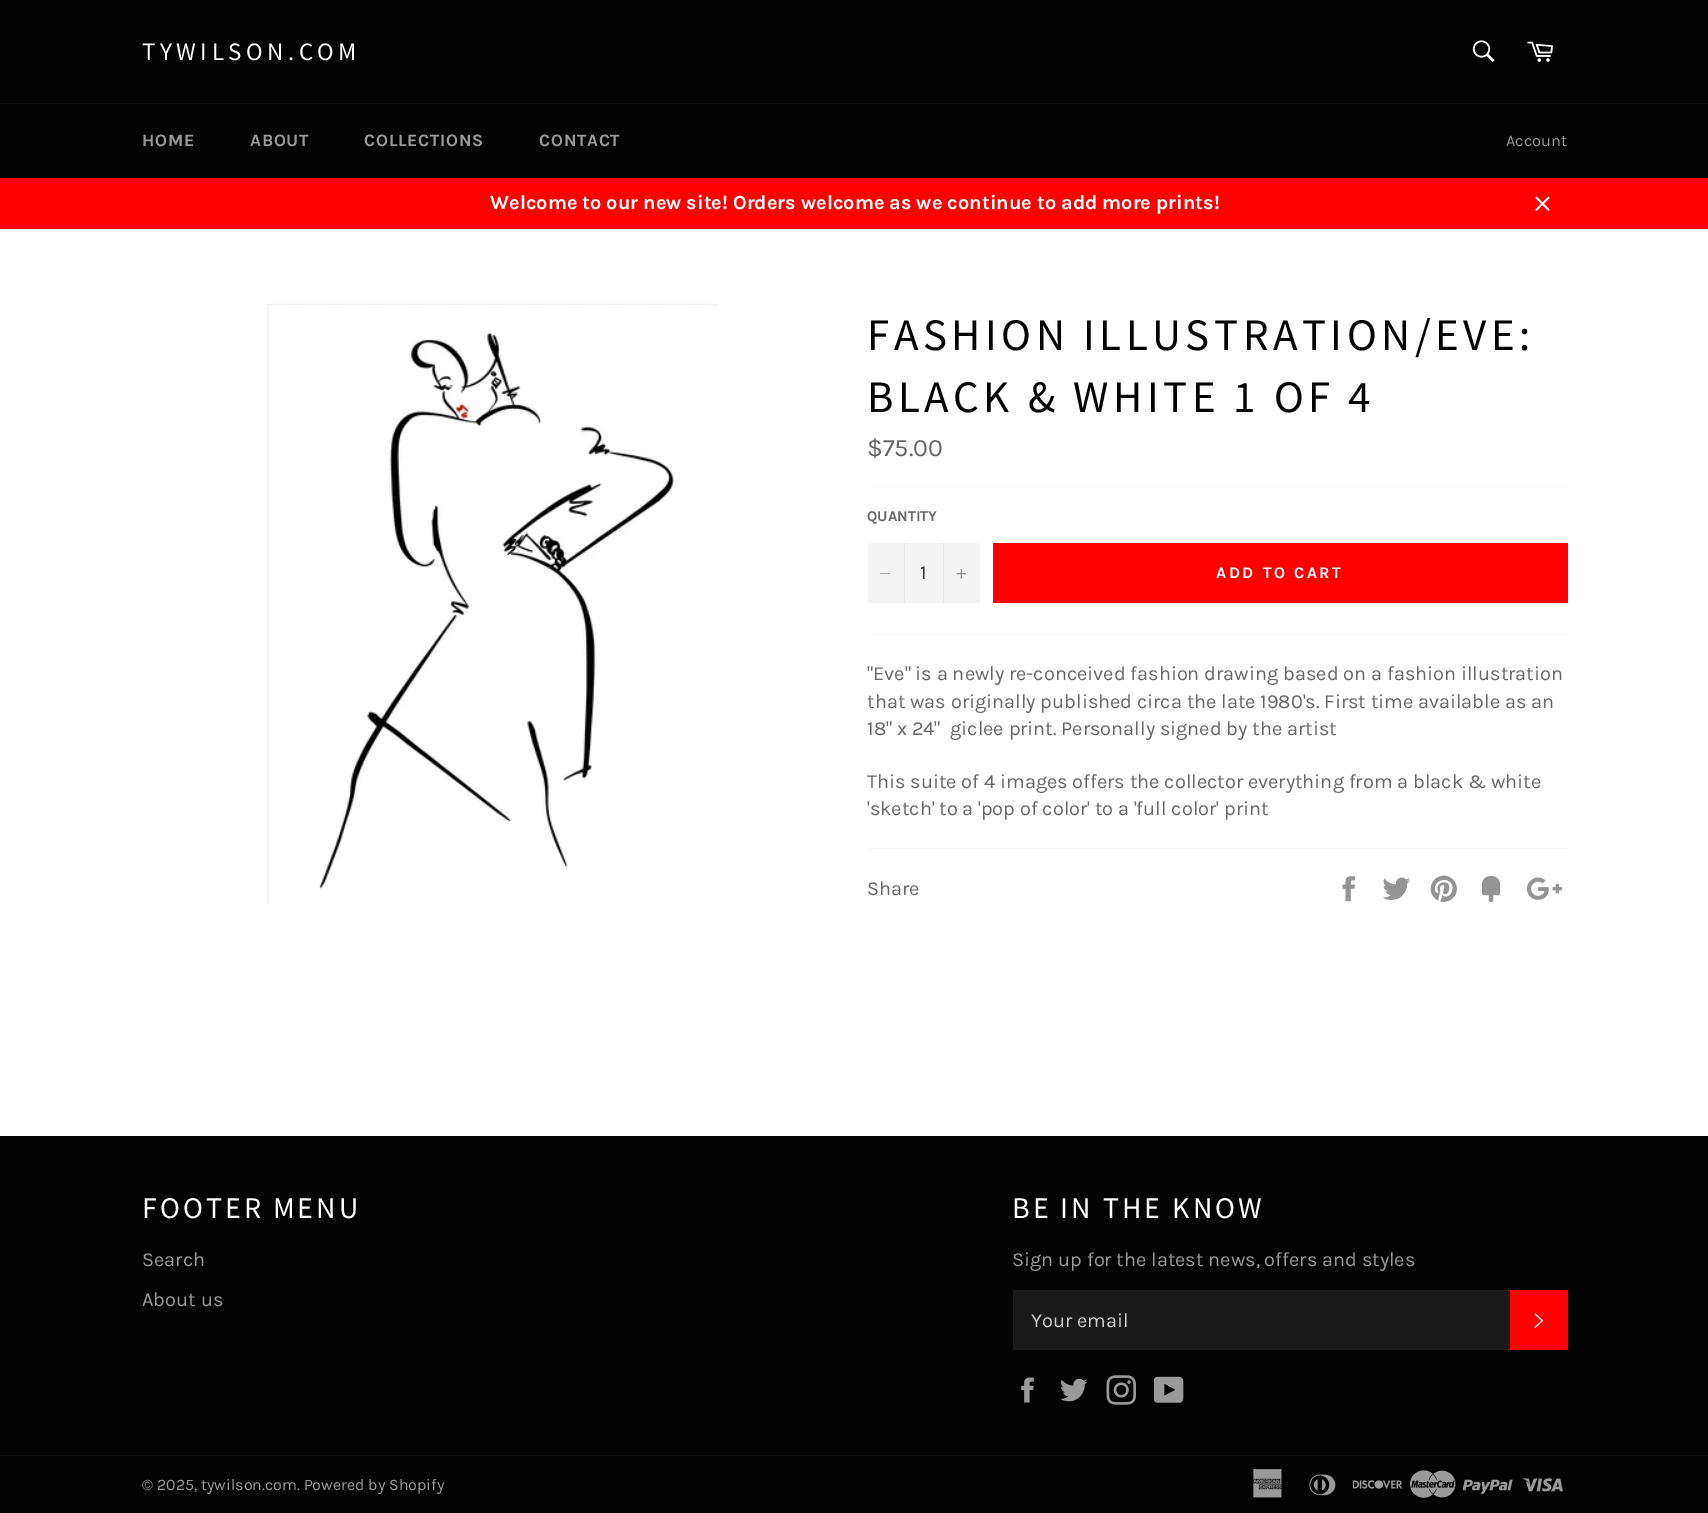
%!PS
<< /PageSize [1708 1513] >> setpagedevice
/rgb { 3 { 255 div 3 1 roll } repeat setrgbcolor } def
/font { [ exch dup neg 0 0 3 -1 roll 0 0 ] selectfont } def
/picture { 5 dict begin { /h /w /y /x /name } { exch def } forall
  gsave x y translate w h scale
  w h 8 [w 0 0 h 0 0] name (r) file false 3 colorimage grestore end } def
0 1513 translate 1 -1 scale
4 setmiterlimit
3 3 3 rgb
0 0 1708 1513 rectfill
255 255 255 rgb
0 229 1708 907 rectfill
(img/1.rgb) 1472 40 23 22 picture
(img/2.rgb) 1527 41 26 21 picture
16 16 16 rgb
0 103 1708 1 rectfill
255 0 0 rgb
0 178 1708 51 rectfill
(img/3.rgb) 1535 196 15 15 picture
(img/4.rgb) 267 303 451 601 picture
[
  [868 486 700 1 247 247 247]
  [868 543 112 60 244 244 244]
  [904 543 1 60 231 231 231]
] { aload pop rgb rectfill } forall
102 102 102 rgb
890 573.5 moveto 890 574 lineto 880 574 lineto 880 573.5 lineto closepath eofill
231 231 231 rgb
943 543 1 60 rectfill
(img/5.rgb) 956 569 10 10 picture
[
  [993 543 575 60 255 0 0]
  [868 634 700 1 247 247 247]
  [868 848 700 1 247 247 247]
] { aload pop rgb rectfill } forall
(img/6.rgb) 1342 876 13 26 picture
(img/7.rgb) 1382 877 28 23 picture
(img/8.rgb) 1430 875 27 27 picture
(img/9.rgb) 1482 876 19 26 picture
(img/10.rgb) 1526 877 37 23 picture
26 26 26 rgb
1013 1290 497 60 rectfill
255 0 0 rgb
1510 1290 58 60 rectfill
(img/11.rgb) 1534 1313 10 16 picture
(img/12.rgb) 1021 1377 13 26 picture
(img/13.rgb) 1060 1378 28 24 picture
(img/14.rgb) 1106 1375 30 30 picture
(img/15.rgb) 1154 1376 30 27 picture
16 16 16 rgb
0 1455 1708 1 rectfill
(img/16.rgb) 1253 1469 29 29 picture
(img/17.rgb) 1309 1474 27 22 picture
(img/18.rgb) 1353 1480 50 9 picture
(img/19.rgb) 1410 1470 46 28 picture
(img/20.rgb) 1463 1479 50 15 picture
(img/21.rgb) 1522 1478 41 14 picture
/SourceSansPro-Regular 25 font
255 255 255 rgb
142 60 moveto 4.5 0 (TYWILSON.COM) ashow
/Karla-Bold 17.5 font
154 154 154 rgb
142 146 moveto 0.75 0 (HOME) ashow
250 146 moveto 0.75 0 (ABOUT) ashow
364 146 moveto 0.75 0 (COLLECTIONS) ashow
539 146 moveto 0.75 0 (CONTACT) ashow
/Karla-Regular 16.25 font
1506 146 moveto (Account) show
/Karla-Bold 20 font
255 255 255 rgb
490 209 moveto (Welcome to our new site! Orders welcome as we continue to add more prints!) show
/SourceSansPro-Regular 45 font
3 3 3 rgb
867 350 moveto 4.5 0 (FASHION ILLUSTRATION/EVE:) ashow
867 412 moveto 4.5 0 (BLACK & WHITE 1 OF 4) ashow
/Karla-Regular 25 font
102 102 102 rgb
867 456 moveto ($75.00) show
/Karla-Bold 15 font
867 521 moveto (QUANTITY) show
/Karla-Regular 20 font
51 51 51 rgb
920 579 moveto (1) show
/Karla-Bold 16.25 font
255 255 255 rgb
1216 578 moveto 2.5 0 (ADD TO CART) ashow
/Karla-Regular 20 font
102 102 102 rgb
[
  [("Eve" is a newly re-conceived fashion drawing based on a fashion illustration) 867 680]
  [(that was originally published circa the late 1980's. First time available as an) 867 708]
  [(18" x 24"  giclee print. Personally signed by the artist) 867 735]
  [(This suite of 4 images offers the collector everything from a black & white) 867 788]
  [('sketch' to a 'pop of color' to a 'full color' print) 867 815]
  [(Share) 867 895]
] { aload pop moveto show } forall
/SourceSansPro-Regular 30 font
255 255 255 rgb
142 1218 moveto 3 0 (FOOTER MENU) ashow
/Karla-Regular 20 font
154 154 154 rgb
142 1266 moveto (Search) show
142 1306 moveto (About us) show
/SourceSansPro-Regular 30 font
255 255 255 rgb
1012 1218 moveto 3 0 (BE IN THE KNOW) ashow
/Karla-Regular 20 font
154 154 154 rgb
1012 1266 moveto (Sign up for the latest news, offers and styles) show
209 209 209 rgb
1031 1327 moveto (Your email) show
/Karla-Regular 16 font
154 154 154 rgb
142 1490 moveto (© 2025, tywilson.com. Powered by Shopify) show
showpage
